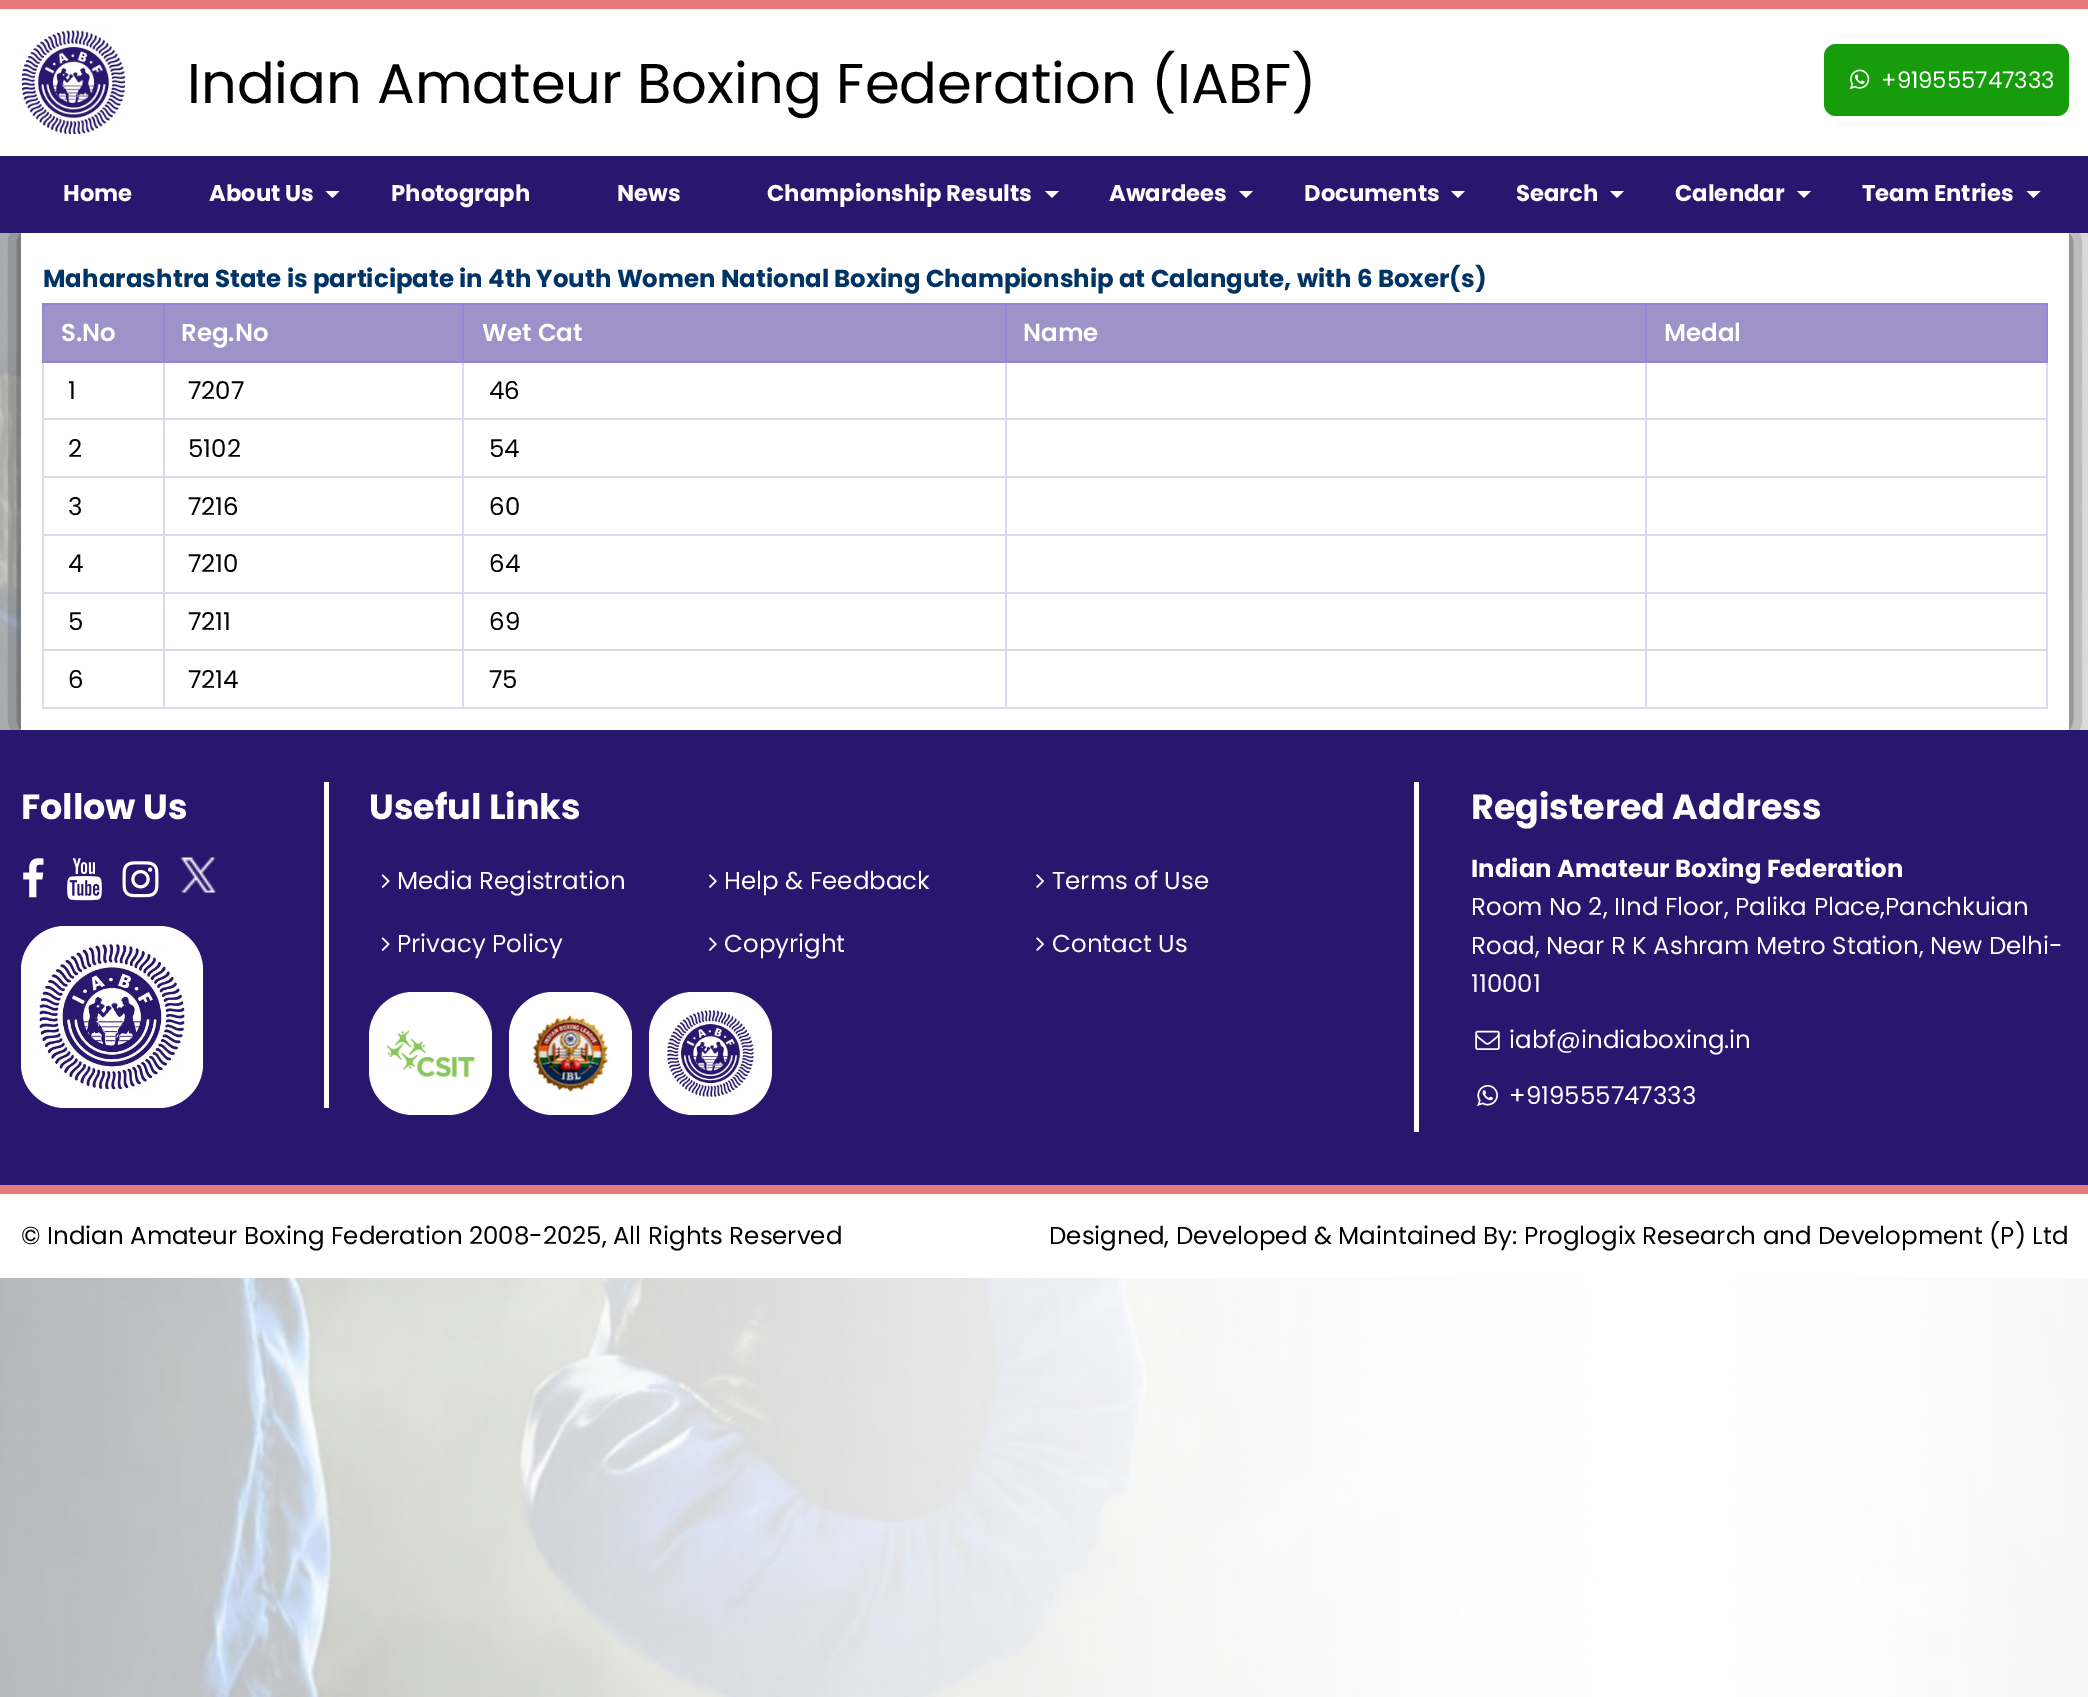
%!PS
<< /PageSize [2088 1697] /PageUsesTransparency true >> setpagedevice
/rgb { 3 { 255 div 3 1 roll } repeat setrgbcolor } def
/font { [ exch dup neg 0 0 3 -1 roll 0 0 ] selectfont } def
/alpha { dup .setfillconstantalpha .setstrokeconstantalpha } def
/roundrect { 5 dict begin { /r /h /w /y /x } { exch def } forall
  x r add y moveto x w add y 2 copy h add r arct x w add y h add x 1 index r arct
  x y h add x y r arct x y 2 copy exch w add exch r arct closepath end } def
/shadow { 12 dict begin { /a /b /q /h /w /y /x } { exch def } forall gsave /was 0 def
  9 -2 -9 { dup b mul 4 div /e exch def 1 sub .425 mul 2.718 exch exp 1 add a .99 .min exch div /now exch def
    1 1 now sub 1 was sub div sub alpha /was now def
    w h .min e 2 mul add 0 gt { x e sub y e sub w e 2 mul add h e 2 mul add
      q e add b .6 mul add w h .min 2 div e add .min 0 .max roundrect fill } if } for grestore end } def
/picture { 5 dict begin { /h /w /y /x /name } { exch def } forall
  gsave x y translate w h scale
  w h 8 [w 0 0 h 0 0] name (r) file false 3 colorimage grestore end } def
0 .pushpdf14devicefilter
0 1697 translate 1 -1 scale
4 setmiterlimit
255 255 255 rgb
0 0 2088 1697 rectfill
(img/1.rgb) 0 233 2088 1464 picture
230 121 121 rgb
0 0 2088 9 rectfill
(img/2.rgb) 21 29 105 106 picture
23 157 12 rgb
1824 44 245 72 12 roundrect fill
(img/3.rgb) 1849 69 21 21 picture
51 51 51 rgb
21 233 2048 497 0 17.5 1 shadow
41 22 111 rgb
0 156 2088 77 rectfill
255 255 255 rgb
325.5 191 moveto 339.5 191 lineto 332.5 198 lineto closepath fill
1045 191 moveto 1059 191 lineto 1052 198 lineto closepath fill
1239 191 moveto 1253 191 lineto 1246 198 lineto closepath fill
1451 191 moveto 1465 191 lineto 1458 198 lineto closepath fill
1610 191 moveto 1624 191 lineto 1617 198 lineto closepath fill
1797 191 moveto 1811 191 lineto 1804 198 lineto closepath fill
2026.5 191 moveto 2040.5 191 lineto 2033.5 198 lineto closepath fill
[
  [21 233 2048 497 255 255 255]
  [44 305 119 56 158 147 200]
  [1645 303 403 2 150 134 208]
  [1645 418 403 2 221 216 238]
  [1645 476 403 2 221 216 238]
  [1645 534 403 2 221 216 238]
  [1645 592 403 2 221 216 238]
  [1645 649 403 2 221 216 238]
  [2046 649 2 60 221 216 238]
  [2046 592 2 59 221 216 238]
  [2046 534 2 59 221 216 238]
  [2046 476 2 60 221 216 238]
  [2046 361 2 117 221 216 238]
  [2046 303 2 59 150 134 208]
  [1645 707 403 2 221 216 238]
  [1645 649 2 60 221 216 238]
  [1005 649 642 2 221 216 238]
  [1645 592 2 59 221 216 238]
  [1005 592 642 2 221 216 238]
  [1645 534 2 59 221 216 238]
  [1005 534 642 2 221 216 238]
  [1645 476 2 60 221 216 238]
  [1005 476 642 2 221 216 238]
  [1645 418 2 60 221 216 238]
  [1005 418 642 2 221 216 238]
  [1645 361 2 59 221 216 238]
  [1645 361 403 2 150 134 208]
  [1645 303 2 59 150 134 208]
  [1005 303 642 2 150 134 208]
  [1005 707 642 2 221 216 238]
  [1005 649 2 60 221 216 238]
  [462 649 544 2 221 216 238]
  [1005 592 2 59 221 216 238]
  [462 592 544 2 221 216 238]
  [1005 534 2 59 221 216 238]
  [462 534 544 2 221 216 238]
  [1005 476 2 60 221 216 238]
  [462 476 544 2 221 216 238]
  [1005 418 2 60 221 216 238]
  [462 418 544 2 221 216 238]
  [1005 361 2 59 221 216 238]
  [1005 361 642 2 150 134 208]
  [1005 303 2 59 150 134 208]
  [462 303 544 2 150 134 208]
  [462 707 544 2 221 216 238]
  [462 649 2 60 221 216 238]
  [163 649 301 2 221 216 238]
  [462 592 2 59 221 216 238]
  [163 592 301 2 221 216 238]
  [462 534 2 59 221 216 238]
  [163 534 301 2 221 216 238]
  [462 476 2 60 221 216 238]
  [163 476 301 2 221 216 238]
  [462 418 2 60 221 216 238]
  [163 418 301 2 221 216 238]
  [462 361 2 59 221 216 238]
  [462 361 544 2 150 134 208]
  [462 303 2 59 150 134 208]
  [163 303 301 2 150 134 208]
  [163 707 301 2 221 216 238]
  [163 649 2 60 221 216 238]
  [42 649 123 2 221 216 238]
  [163 592 2 59 221 216 238]
  [42 592 123 2 221 216 238]
  [163 534 2 59 221 216 238]
  [42 534 123 2 221 216 238]
  [163 476 2 60 221 216 238]
  [42 476 123 2 221 216 238]
  [163 418 2 60 221 216 238]
  [42 418 123 2 221 216 238]
  [163 361 2 59 221 216 238]
  [163 361 301 2 150 134 208]
  [163 303 2 59 150 134 208]
  [42 303 123 2 150 134 208]
  [42 707 123 2 221 216 238]
  [42 649 2 60 221 216 238]
  [42 592 2 59 221 216 238]
  [42 534 2 59 221 216 238]
  [42 476 2 60 221 216 238]
  [42 361 2 117 221 216 238]
  [42 361 123 2 150 134 208]
  [42 303 2 59 150 134 208]
  [165 305 297 56 158 147 200]
  [464 305 541 56 158 147 200]
  [1007 305 638 56 158 147 200]
  [1647 305 399 56 158 147 200]
  [0 730 2088 455 41 22 111]
  [0 1185 2088 9 230 121 121]
  [324 782 5 326 255 255 255]
] { aload pop rgb rectfill } forall
(img/4.rgb) 23 858 21 40 picture
(img/5.rgb) 67 858 35 43 picture
(img/6.rgb) 122 861 37 37 picture
(img/7.rgb) 180 857 36 36 picture
21 926 182 182 44 roundrect fill
(img/8.rgb) 38 943 148 148 picture
(img/9.rgb) 381 874 9 14 picture
(img/10.rgb) 709 874 8 14 picture
(img/11.rgb) 1036 874 9 14 picture
(img/9.rgb) 381 937 9 14 picture
(img/10.rgb) 709 937 8 14 picture
(img/11.rgb) 1036 937 9 14 picture
369 992 123 123 44 roundrect fill
(img/12.rgb) 386 1030 89 48 picture
509 992 123 123 44 roundrect fill
(img/13.rgb) 532 1014 77 78 picture
649 992 123 123 44 roundrect fill
(img/14.rgb) 667 1009 87 89 picture
1414 782 5 350 rectfill
(img/15.rgb) 1475 1030 25 20 picture
(img/16.rgb) 1477 1084 21 22 picture
0 1194 2088 84 rectfill
/Poppins-Regular 56 font
0 0 0 rgb
187 103 moveto (Indian Amateur Boxing Federation \(IABF\)) show
/Poppins-Regular 22.75 font
255 255 255 rgb
1881 88 moveto (+919555747333) show
/Poppins-Bold 22.75 font
[
  [(Home) 63 201]
  [(About Us) 209 201]
  [(Photograph) 391 201]
  [(News) 617 201]
  [(Championship Results) 767 201]
  [(Awardees) 1109 201]
  [(Documents) 1304 201]
  [(Search) 1516 201]
  [(Calendar) 1675 201]
  [(Team Entries) 1862 201]
] { aload pop moveto show } forall
/Poppins-Bold 24.5 font
0 51 102 rgb
43 287 moveto (Maharashtra State is participate in 4th Youth Women National Boxing Championship at Calangute, with 6 Boxer\(s\)) show
/Poppins-SemiBold 24.5 font
255 255 255 rgb
[
  [(S.No) 61 341]
  [(Reg.No) 181 341]
  [(Wet Cat) 482 341]
  [(Name) 1023 341]
  [(Medal) 1664 341]
] { aload pop moveto show } forall
/Poppins-Regular 24.5 font
0 0 0 rgb
[
  [(1) 68 399]
  [(7207) 188 399]
  [(46) 489 399]
  [(2) 68 457]
  [(5102) 188 457]
  [(54) 489 457]
  [(3) 68 515]
  [(7216) 188 515]
  [(60) 489 515]
  [(4) 68 572]
  [(7210) 188 572]
  [(64) 489 572]
  [(5) 68 630]
  [(7211) 188 630]
  [(69) 489 630]
  [(6) 68 688]
  [(7214) 188 688]
  [(75) 489 688]
] { aload pop moveto show } forall
/Poppins-Bold 35 font
255 255 255 rgb
21 819 moveto (Follow Us) show
369 819 moveto (Useful Links) show
/Poppins-Regular 24.5 font
[
  [(Media Registration) 397 889]
  [(Help & Feedback) 724 889]
  [(Terms of Use) 1052 889]
  [(Privacy Policy) 397 952]
  [(Copyright) 724 952]
  [(Contact Us) 1052 952]
] { aload pop moveto show } forall
/Poppins-Bold 35 font
1471 819 moveto (Registered Address) show
/Poppins-Bold 24.5 font
1471 877 moveto (Indian Amateur Boxing Federation) show
/Poppins-Regular 24.5 font
[
  [(Room No 2, IInd Floor, Palika Place,Panchkuian) 1471 915]
  [(Road, Near R K Ashram Metro Station, New Delhi-) 1471 954]
  [(110001) 1471 992]
  [(iabf@indiaboxing.in) 1509 1048]
  [(+919555747333) 1509 1104]
] { aload pop moveto show } forall
0 0 0 rgb
21 1244 moveto (© Indian Amateur Boxing Federation 2008-2025, All Rights Reserved) show
1049 1244 moveto (Designed, Developed & Maintained By: Proglogix Research and Development \(P\) Ltd) show
.poppdf14devicefilter showpage
